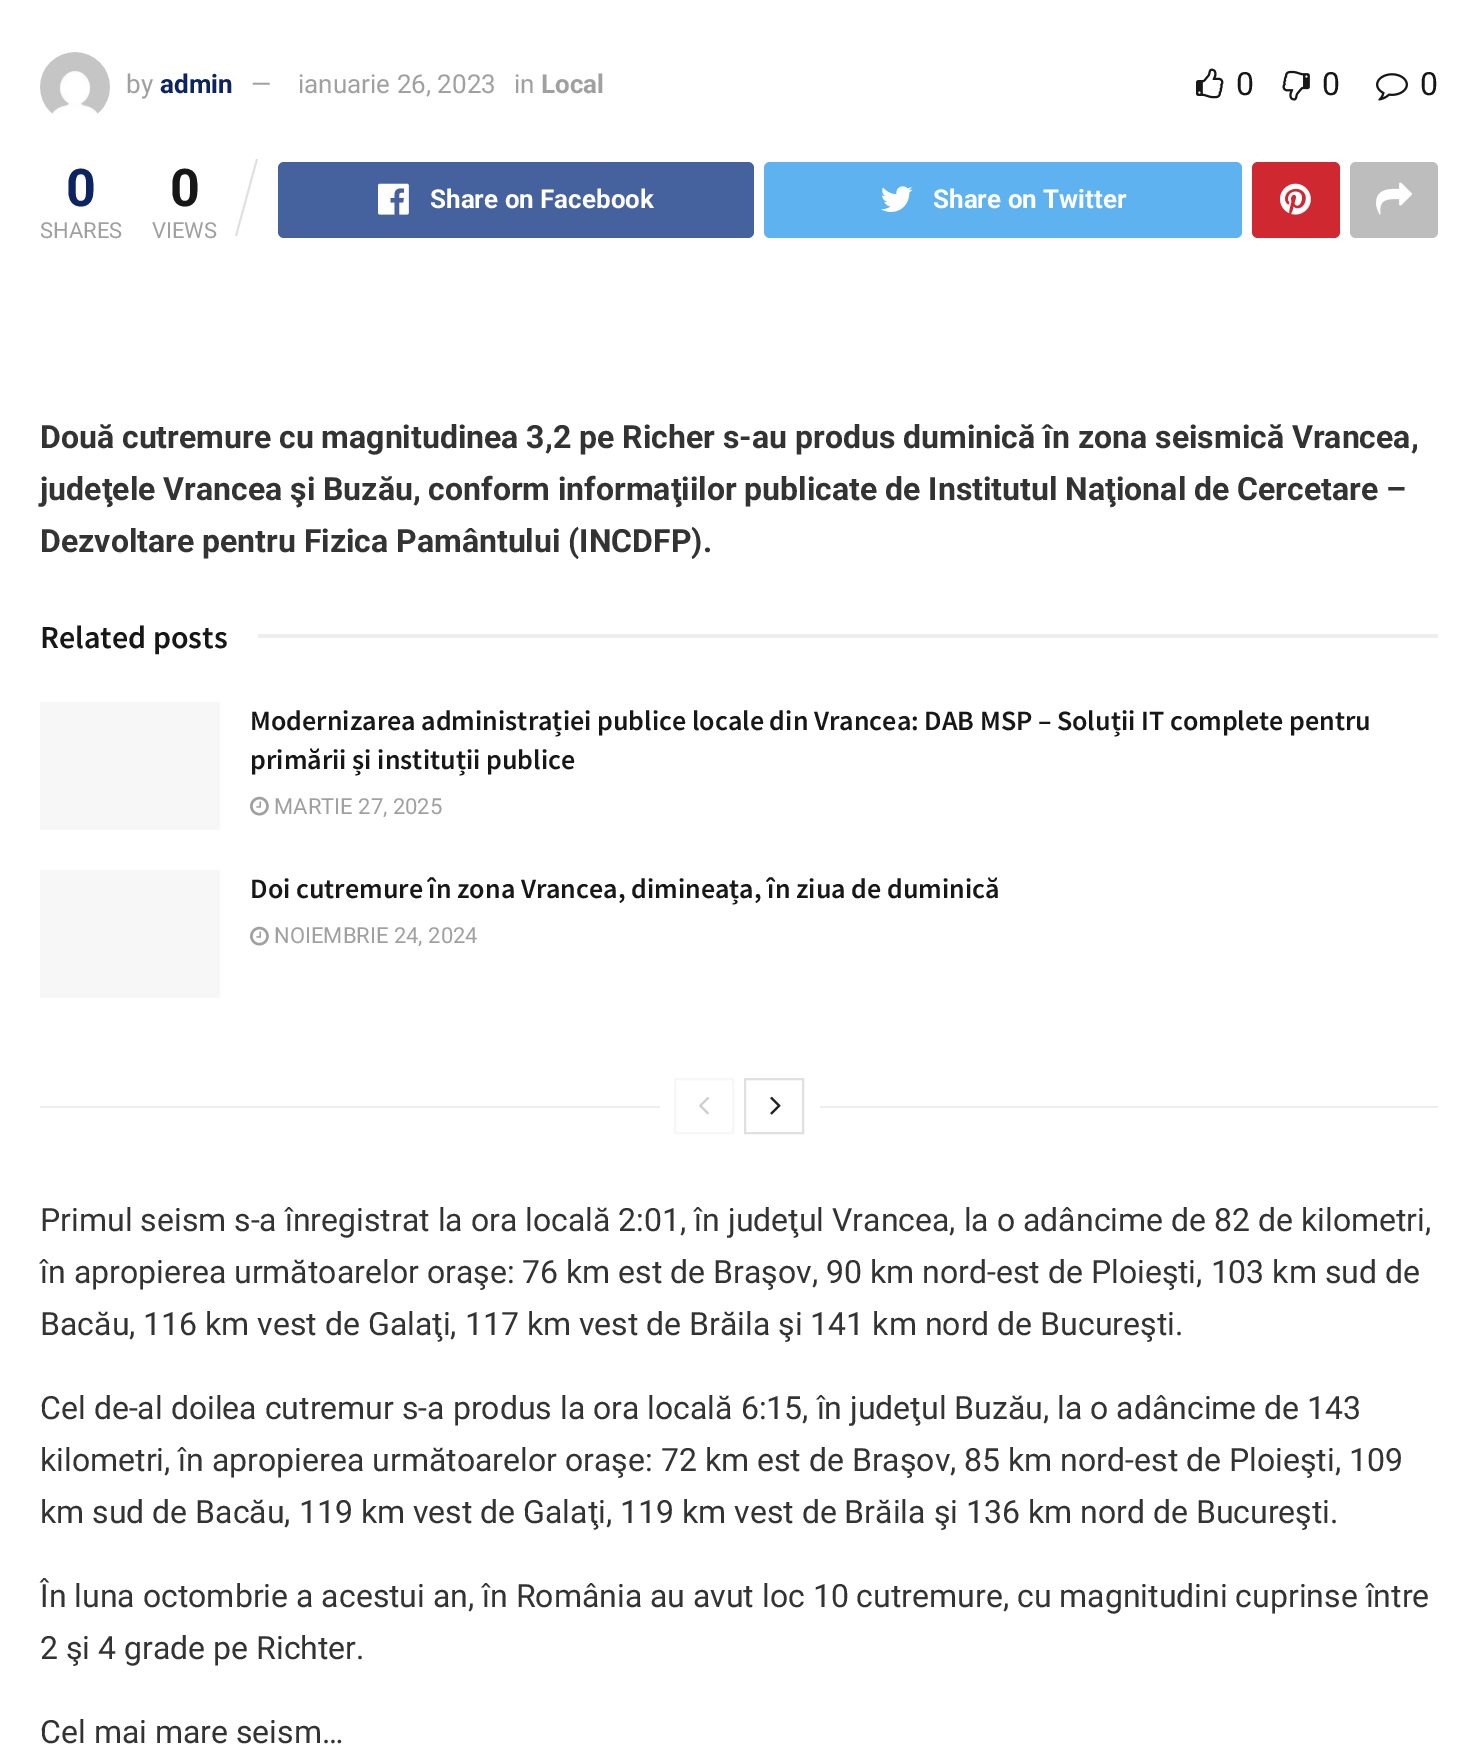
%!PS
<< /PageSize [1477 1761] >> setpagedevice
/rgb { 3 { 255 div 3 1 roll } repeat setrgbcolor } def
/font { [ exch dup neg 0 0 3 -1 roll 0 0 ] selectfont } def
/roundrect { 5 dict begin { /r /h /w /y /x } { exch def } forall
  x r add y moveto x w add y 2 copy h add r arct x w add y h add x 1 index r arct
  x y h add x y r arct x y 2 copy exch w add exch r arct closepath end } def
/picture { 5 dict begin { /h /w /y /x /name } { exch def } forall
  gsave x y translate w h scale
  w h 8 [w 0 0 h 0 0] name (r) file false 3 colorimage grestore end } def
0 1761 translate 1 -1 scale
4 setmiterlimit
255 255 255 rgb
0 0 1477 1761 rectfill
(img/1.rgb) 40 52 70 62 picture
(img/2.rgb) 1196 68 28 31 picture
(img/3.rgb) 1282 70 28 31 picture
(img/4.rgb) 1376 73 32 28 picture
224 224 224 rgb
256 159 moveto 258 159 lineto 237 236 lineto 235 236 lineto closepath fill
69 98 159 rgb
278 162 476 76 6 roundrect fill
(img/5.rgb) 378 183 31 32 picture
94 178 239 rgb
764 162 478 76 6 roundrect fill
(img/6.rgb) 881 186 32 26 picture
207 40 48 rgb
1252 162 88 76 6 roundrect fill
(img/7.rgb) 1280 183 31 32 picture
189 189 189 rgb
1350 162 88 76 6 roundrect fill
(img/8.rgb) 1376 182 36 33 picture
238 238 238 rgb
258 634 1180 4 rectfill
247 247 247 rgb
40 702 180 128 rectfill
(img/9.rgb) 250 796 19 20 picture
40 870 180 128 rectfill
(img/9.rgb) 250 926 19 20 picture
238 238 238 rgb
40 1106 620 2 rectfill
247 247 247 rgb
2 setlinewidth
675 1079 58 54 rectstroke
(img/10.rgb) 699 1097 10 18 picture
224 224 224 rgb
745 1079 58 54 rectstroke
(img/11.rgb) 770 1096 11 19 picture
238 238 238 rgb
820 1106 618 2 rectfill
/Roboto-Regular 26 font
160 160 160 rgb
126 93 moveto (by) show
/Roboto-Bold 26 font
12 36 97 rgb
160 93 moveto (admin) show
/Roboto-Regular 26 font
160 160 160 rgb
[
  [(—) 251 93]
  [(ianuarie 26, 2023) 298 93]
  [(in) 514 93]
] { aload pop moveto show } forall
/Roboto-Bold 26 font
541 93 moveto (Local) show
/Roboto-Regular 32 font
23 23 23 rgb
[
  [(0) 1236 95]
  [(0) 1322 95]
  [(0) 1420 95]
] { aload pop moveto show } forall
/Roboto-Bold 52 font
12 36 97 rgb
66 206 moveto (0) show
/Roboto-Regular 22 font
160 160 160 rgb
40 238 moveto (SHARES) show
/Roboto-Bold 52 font
23 23 23 rgb
170 206 moveto (0) show
/Roboto-Regular 22 font
160 160 160 rgb
152 238 moveto (VIEWS) show
/Roboto-Bold 26 font
255 255 255 rgb
430 208 moveto (Share on Facebook) show
933 208 moveto (Share on Twitter) show
/Roboto-Bold 32 font
51 51 51 rgb
[
  [(Două cutremure cu magnitudinea 3,2 pe Richer s-au produs duminică în zona seismică Vrancea,) 40 448]
  [(judeţele Vrancea şi Buzău, conform informaţiilor publicate de Institutul Naţional de Cercetare –) 40 500]
  [(Dezvoltare pentru Fizica Pamântului \(INCDFP\).) 40 552]
] { aload pop moveto show } forall
/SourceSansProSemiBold-SemiBold 32 font
23 23 23 rgb
40 648 moveto (Related posts) show
/SourceSansProSemiBold-SemiBold 28 font
250 730 moveto (Modernizarea administrației publice locale din Vrancea: DAB MSP – Soluții IT complete pentru) show
250 769 moveto (primării și instituții publice) show
/Roboto-Regular 22 font
160 160 160 rgb
274 814 moveto (MARTIE 27, 2025) show
/SourceSansProSemiBold-SemiBold 28 font
23 23 23 rgb
250 898 moveto (Doi cutremure în zona Vrancea, dimineața, în ziua de duminică) show
/Roboto-Regular 22 font
160 160 160 rgb
274 943 moveto (NOIEMBRIE 24, 2024) show
/Roboto-Regular 32 font
51 51 51 rgb
[
  [(Primul seism s-a înregistrat la ora locală 2:01, în judeţul Vrancea, la o adâncime de 82 de kilometri,) 40 1231]
  [(în apropierea următoarelor oraşe: 76 km est de Braşov, 90 km nord-est de Ploieşti, 103 km sud de) 40 1283]
  [(Bacău, 116 km vest de Galaţi, 117 km vest de Brăila şi 141 km nord de Bucureşti.) 40 1335]
  [(Cel de-al doilea cutremur s-a produs la ora locală 6:15, în judeţul Buzău, la o adâncime de 143) 40 1419]
  [(kilometri, în apropierea următoarelor oraşe: 72 km est de Braşov, 85 km nord-est de Ploieşti, 109) 40 1471]
  [(km sud de Bacău, 119 km vest de Galaţi, 119 km vest de Brăila şi 136 km nord de Bucureşti.) 40 1523]
  [(În luna octombrie a acestui an, în România au avut loc 10 cutremure, cu magnitudini cuprinse între) 40 1607]
  [(2 şi 4 grade pe Richter.) 40 1659]
  [(Cel mai mare seism…) 40 1743]
] { aload pop moveto show } forall
showpage
